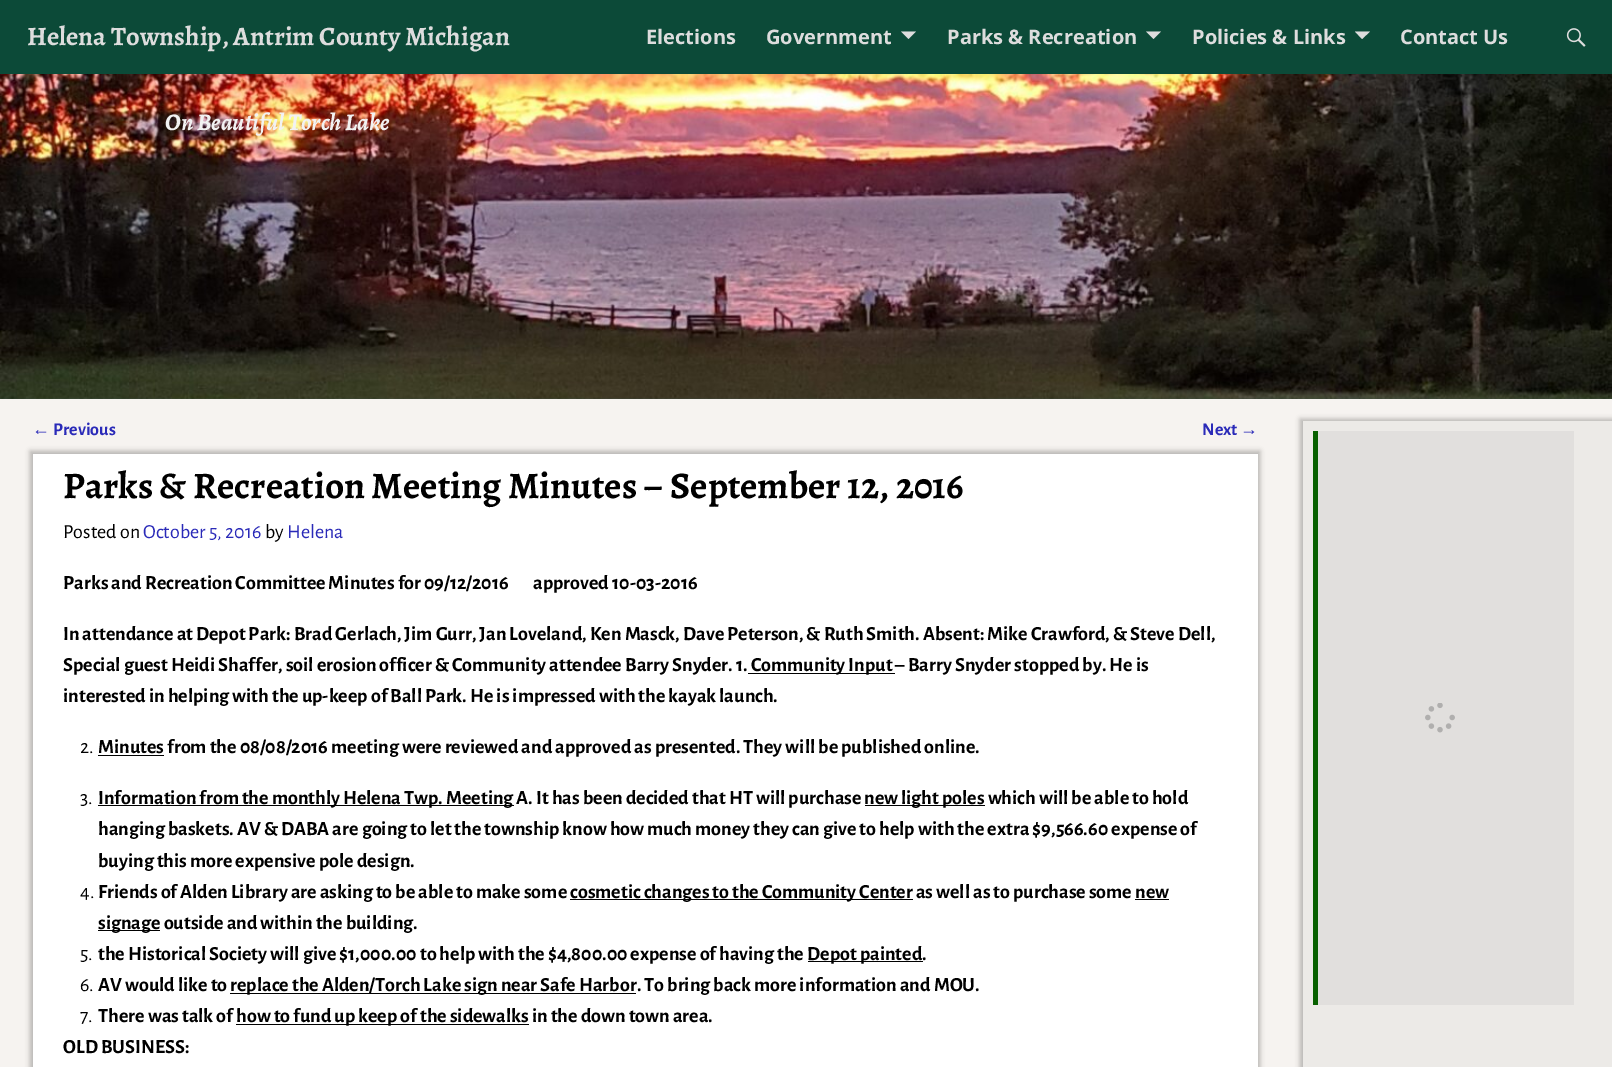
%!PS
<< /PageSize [1612 1067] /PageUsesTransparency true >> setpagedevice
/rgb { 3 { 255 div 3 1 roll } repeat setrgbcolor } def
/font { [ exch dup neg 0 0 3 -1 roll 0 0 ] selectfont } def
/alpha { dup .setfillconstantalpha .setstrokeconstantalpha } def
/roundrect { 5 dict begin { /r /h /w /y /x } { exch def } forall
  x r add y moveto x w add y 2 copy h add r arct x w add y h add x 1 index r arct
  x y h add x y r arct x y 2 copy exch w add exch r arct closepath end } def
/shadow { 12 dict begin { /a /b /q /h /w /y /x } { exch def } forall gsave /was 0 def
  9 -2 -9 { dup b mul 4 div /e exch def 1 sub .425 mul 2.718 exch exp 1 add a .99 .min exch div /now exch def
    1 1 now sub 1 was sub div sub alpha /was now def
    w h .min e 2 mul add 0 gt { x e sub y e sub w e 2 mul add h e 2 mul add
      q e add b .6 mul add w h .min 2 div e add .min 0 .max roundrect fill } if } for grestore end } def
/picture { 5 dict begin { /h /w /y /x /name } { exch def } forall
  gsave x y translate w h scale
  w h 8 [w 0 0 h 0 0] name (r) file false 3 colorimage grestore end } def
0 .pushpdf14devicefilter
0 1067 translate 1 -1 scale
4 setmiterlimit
246 243 240 rgb
0 0 1612 1067 rectfill
12 74 56 rgb
0 0 1612 74 rectfill
221 221 221 rgb
901 31.5 moveto 916 31.5 lineto 908.5 39 lineto closepath fill
1146 31.5 moveto 1161 31.5 lineto 1153.5 39 lineto closepath fill
1355 31.5 moveto 1370 31.5 lineto 1362 39 lineto closepath fill
(img/1.rgb) 1566 28 20 19 picture
(img/2.rgb) 0 74 1612 325 picture
0 0 0 rgb
30 451 1230 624 0 2.5 0.25 shadow
[
  [33 454 1225 613 255 255 255]
  [748 673 147 1 0 0 0]
  [98 755 66 1 0 0 0]
  [98 805 416 1 0 0 0]
  [865 805 120 1 0 0 0]
  [570 899 343 1 0 0 0]
  [1135 899 34 1 0 0 0]
  [98 930 62 1 0 0 0]
  [808 961 115 1 0 0 0]
  [230 993 406 1 0 0 0]
  [236 1024 293 1 0 0 0]
] { aload pop rgb rectfill } forall
1300 419 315 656 0 2.5 0.25 shadow
[
  [1303 421 309 646 236 234 231]
  [1318 431 256 574 225 223 221]
  [1313 431 5 574 8 96 0]
] { aload pop rgb rectfill } forall
(img/3.rgb) 1425 703 30 30 picture
/Alegreya-Bold 26.6 font
221 221 221 rgb
27 45 moveto (Helena Township, Antrim County Michigan) show
/OpenSans-Bold 20 font
[
  [(Elections) 646 44]
  [(Government) 766 44]
  [(Parks & Recreation) 947 44]
  [(Policies & Links) 1192 44]
  [(Contact Us) 1400 44]
] { aload pop moveto show } forall
/Alegreya-BoldItalic 24 font
242 242 242 rgb
165 130 moveto (On Beautiful Torch Lake) show
/LiberationSans-Regular 18 font
42 42 184 rgb
32 435 moveto (←) show
/AlegreyaSans-Bold 18 font
53 435 moveto (Previous) show
1202 435 moveto (Next) show
/LiberationSans-Regular 18 font
1240 435 moveto (→) show
/Alegreya-Bold 37.5 font
0 0 0 rgb
63 498 moveto (Parks & Recreation Meeting Minutes – September 12, 2016) show
/AlegreyaSans-Regular 20 font
63 538 moveto (Posted on) show
42 42 184 rgb
143 538 moveto (October 5, 2016) show
0 0 0 rgb
265 538 moveto (by) show
42 42 184 rgb
287 538 moveto (Helena) show
/AlegreyaSans-Bold 20 font
0 0 0 rgb
[
  [(Parks and Recreation Committee Minutes for 09/12/2016        approved 10-03-2016) 63 589]
  [(In attendance at Depot Park: Brad Gerlach, Jim Gurr, Jan Loveland, Ken Masck, Dave Peterson, & Ruth Smith. Absent: Mike Crawford, & Steve Dell,) 63 640]
  [(Special guest Heidi Shaffer, soil erosion officer & Community attendee Barry Snyder. 1.) 63 671]
  [(Community Input – Barry Snyder stopped by. He is) 751 671]
  [(interested in helping with the up-keep of Ball Park. He is impressed with the kayak launch.) 63 702]
] { aload pop moveto show } forall
/AlegreyaSans-Regular 20 font
80 753 moveto (2.) show
/AlegreyaSans-Bold 20 font
98 753 moveto (Minutes from the 08/08/2016 meeting were reviewed and approved as presented. They will be published online.) show
/AlegreyaSans-Regular 20 font
80 804 moveto (3.) show
/AlegreyaSans-Bold 20 font
[
  [(Information from the monthly Helena Twp. Meeting A. It has been decided that HT will purchase) 98 804]
  [(new light poles which will be able to hold) 864 804]
  [(hanging baskets. AV & DABA are going to let the township know how much money they can give to help with the extra $9,566.60 expense of) 98 835]
  [(buying this more expensive pole design.) 98 867]
] { aload pop moveto show } forall
/AlegreyaSans-Regular 20 font
80 898 moveto (4.) show
/AlegreyaSans-Bold 20 font
[
  [(Friends of Alden Library are asking to be able to make some) 98 898]
  [(cosmetic changes to the Community Center as well as to purchase some new) 570 898]
  [(signage outside and within the building.) 98 929]
] { aload pop moveto show } forall
/AlegreyaSans-Regular 20 font
80 960 moveto (5.) show
/AlegreyaSans-Bold 20 font
98 960 moveto (the Historical Society will give $1,000.00 to help with the $4,800.00 expense of having the) show
807 960 moveto (Depot painted.) show
/AlegreyaSans-Regular 20 font
80 991 moveto (6.) show
/AlegreyaSans-Bold 20 font
98 991 moveto (AV would like to) show
230 991 moveto (replace the Alden/Torch Lake sign near Safe Harbor. To bring back more information and MOU.) show
/AlegreyaSans-Regular 20 font
80 1022 moveto (7.) show
/AlegreyaSans-Bold 20 font
[
  [(There was talk of) 98 1022]
  [(how to fund up keep of the sidewalks in the down town area.) 236 1022]
  [(OLD BUSINESS:) 63 1053]
] { aload pop moveto show } forall
.poppdf14devicefilter showpage
